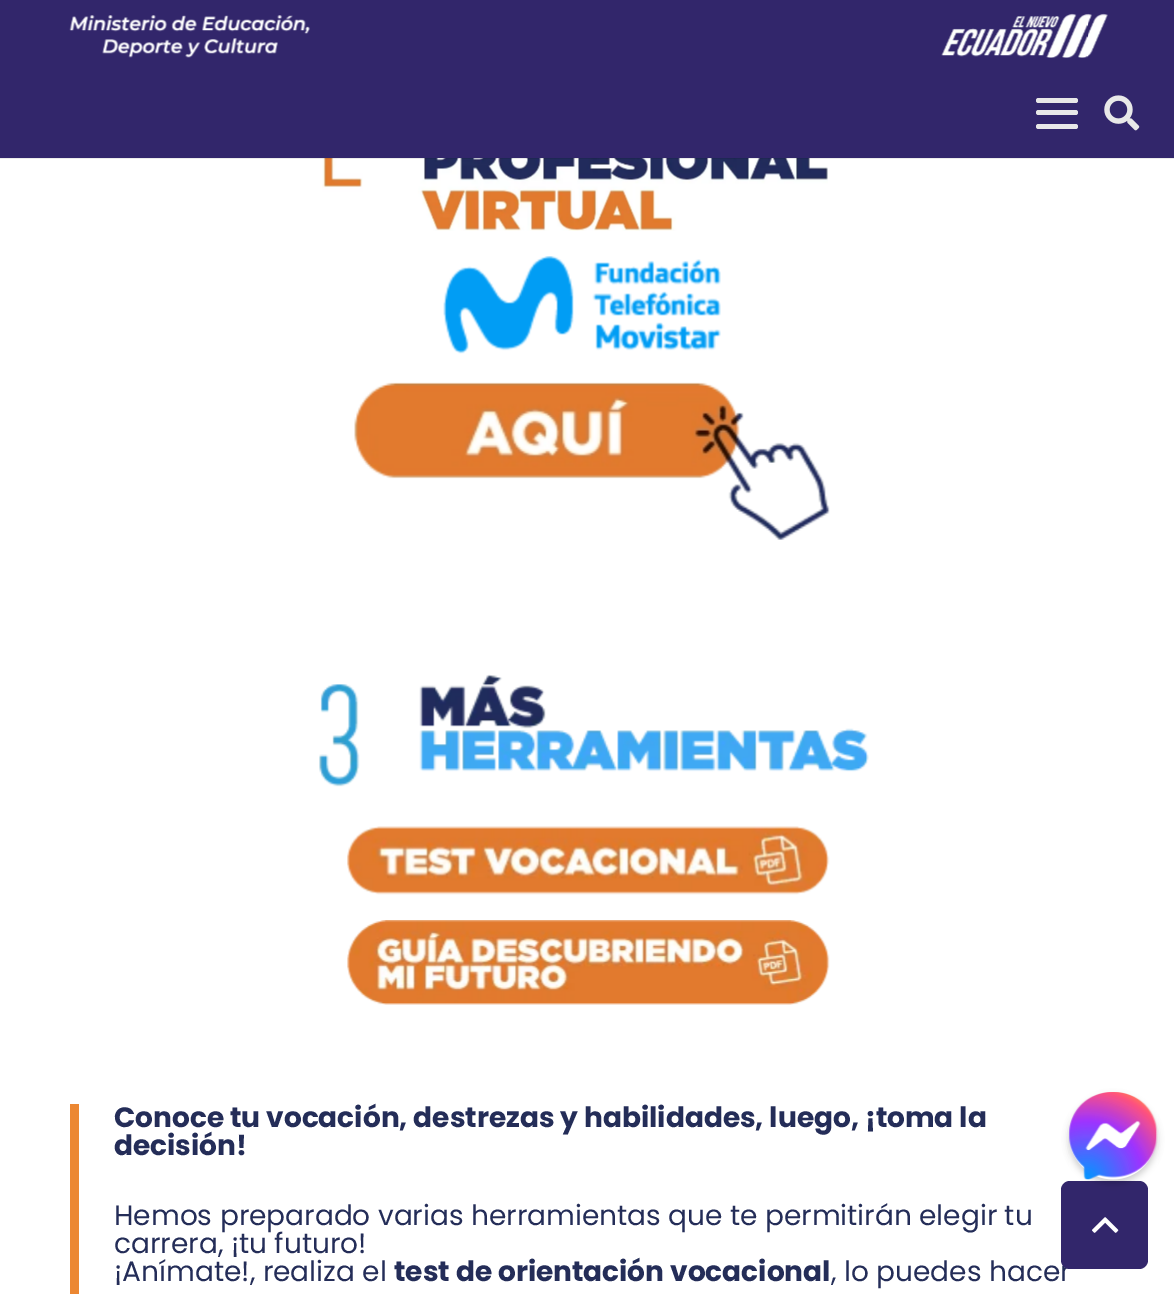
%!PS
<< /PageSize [1174 1294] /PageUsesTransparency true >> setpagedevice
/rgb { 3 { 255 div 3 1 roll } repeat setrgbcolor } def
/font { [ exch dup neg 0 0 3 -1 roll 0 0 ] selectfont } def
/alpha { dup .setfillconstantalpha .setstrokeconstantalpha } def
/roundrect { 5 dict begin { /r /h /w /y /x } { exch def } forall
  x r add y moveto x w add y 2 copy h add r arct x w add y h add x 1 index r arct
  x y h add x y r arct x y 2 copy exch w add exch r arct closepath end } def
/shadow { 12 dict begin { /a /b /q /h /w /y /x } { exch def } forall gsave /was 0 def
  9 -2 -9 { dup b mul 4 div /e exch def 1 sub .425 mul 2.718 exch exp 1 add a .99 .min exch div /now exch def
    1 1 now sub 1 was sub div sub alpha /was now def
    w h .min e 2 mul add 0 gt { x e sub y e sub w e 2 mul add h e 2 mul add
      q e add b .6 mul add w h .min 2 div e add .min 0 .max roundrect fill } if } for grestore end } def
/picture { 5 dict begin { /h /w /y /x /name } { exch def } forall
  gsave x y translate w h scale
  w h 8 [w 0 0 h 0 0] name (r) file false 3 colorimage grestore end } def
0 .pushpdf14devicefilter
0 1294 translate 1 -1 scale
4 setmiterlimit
255 255 255 rgb
0 0 1174 1294 rectfill
50 38 107 rgb
0 0 1174 158 rectfill
(img/1.rgb) 69 15 241 43 picture
(img/2.rgb) 941 13 167 45 picture
(img/5.rgb) 322 158 506 73 picture
0.08 alpha
0 0 0 rgb
0 158 1174 1 rectfill
1 alpha
232 232 232 rgb
1036 110 42 5 2.5 roundrect fill
1036 98 42 5 2.5 roundrect fill
1036 124 42 5 2.5 roundrect fill
(img/4.rgb) 1104 95 36 36 picture
(img/6.rgb) 443 256 278 98 picture
(img/7.rgb) 354 382 476 158 picture
(img/8.rgb) 319 674 550 113 picture
(img/9.rgb) 347 826 483 69 picture
(img/10.rgb) 347 920 483 85 picture
236 135 50 rgb
70 1104 9 190 rectfill
/Poppins-Bold 28 font
36 45 88 rgb
114 1127 moveto (Conoce tu vocación, destrezas y habilidades, luego, ¡toma la) show
114 1155 moveto (decisión!) show
/Poppins-Regular 28 font
[
  [(Hemos preparado varias herramientas que te permitirán elegir tu) 114 1225]
  [(carrera, ¡tu futuro!) 114 1253]
  [(¡Anímate!, realiza el) 114 1281]
] { aload pop moveto show } forall
/Poppins-Bold 28 font
394 1281 moveto (test de orientación vocacional) show
/Poppins-Regular 28 font
831 1281 moveto (, lo puedes hacer) show
50 38 107 rgb
1061 1181 87 88 9 roundrect fill
gsave
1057 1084 moveto 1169 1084 lineto 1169 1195 lineto 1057 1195 lineto closepath 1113 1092 moveto 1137.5 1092 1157 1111.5 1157 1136 curveto 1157 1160.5 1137.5 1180 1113 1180 curveto 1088.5 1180 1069 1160.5 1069 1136 curveto 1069 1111.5 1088.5 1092 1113 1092 curveto closepath eoclip newpath
0 0 0 rgb
1069 1096 88 87 43.5 3.5 0.2 shadow
grestore
(img/3.rgb) 1069 1092 89 88 picture
(img/11.rgb) 1092 1217 27 16 picture
.poppdf14devicefilter showpage
